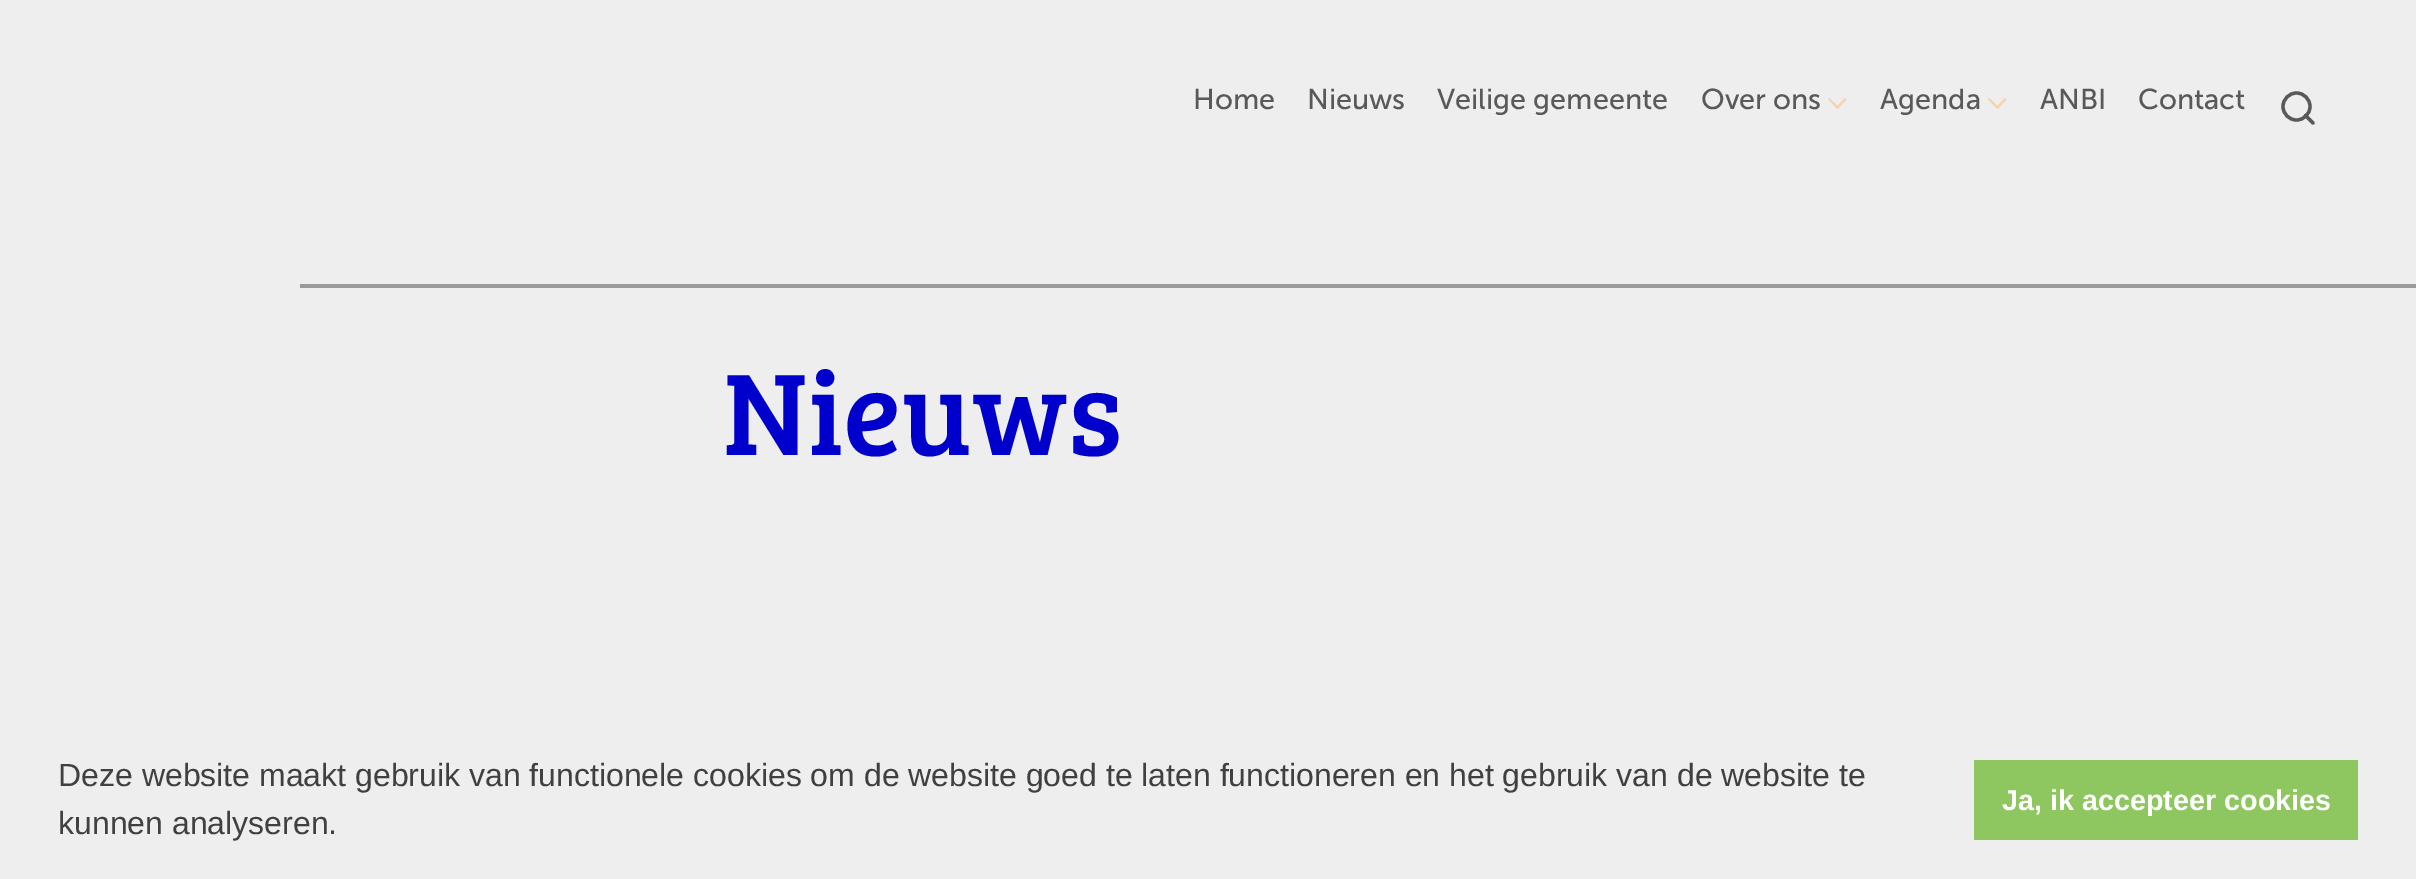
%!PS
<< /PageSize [2416 879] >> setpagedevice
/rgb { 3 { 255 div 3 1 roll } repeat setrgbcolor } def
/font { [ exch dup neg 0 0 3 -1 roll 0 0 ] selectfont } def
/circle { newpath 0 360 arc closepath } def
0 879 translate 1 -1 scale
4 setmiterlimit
238 238 238 rgb
0 0 2416 879 rectfill
252 209 166 rgb
1846.5 99.5 moveto 1837.5 109 lineto 1836 107.5 lineto 1845 98 lineto closepath fill
1839 107.5 moveto 1837.5 109 lineto 1828.5 99.5 lineto 1829.5 98 lineto closepath fill
2006.5 99.5 moveto 1997.5 109 lineto 1996 107.5 lineto 2005 98 lineto closepath fill
1999 107.5 moveto 1997.5 109 lineto 1988 99.5 lineto 1989.5 98 lineto closepath fill
89 89 89 rgb
3.3 setlinewidth
2296.5 106.5 13.5 circle stroke
1 setlinecap
1 setlinejoin
2313 123 moveto 2305.5 115.5 lineto stroke
153 153 153 rgb
300 284 2116 4 rectfill
142 199 96 rgb
1974 760 384 80 rectfill
/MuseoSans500-Regular 28.75 font
89 89 89 rgb
[
  [(Home) 1193 109]
  [(Nieuws) 1307 109]
  [(Veilige gemeente) 1437 109]
  [(Over ons) 1701 109]
  [(Agenda) 1880 109]
  [(ANBI) 2040 109]
  [(Contact) 2138 109]
] { aload pop moveto show } forall
/BreeSerif-Regular 120 font
0 0 204 rgb
723 455 moveto (Nieuws) show
/LiberationSans-Regular 32 font
64 64 64 rgb
58 786 moveto (Deze website maakt gebruik van functionele cookies om de website goed te laten functioneren en het gebruik van de website te) show
58 834 moveto (kunnen analyseren.) show
/LiberationSans-Bold 28.75 font
255 255 255 rgb
2002 810 moveto (Ja, ik accepteer cookies) show
showpage
